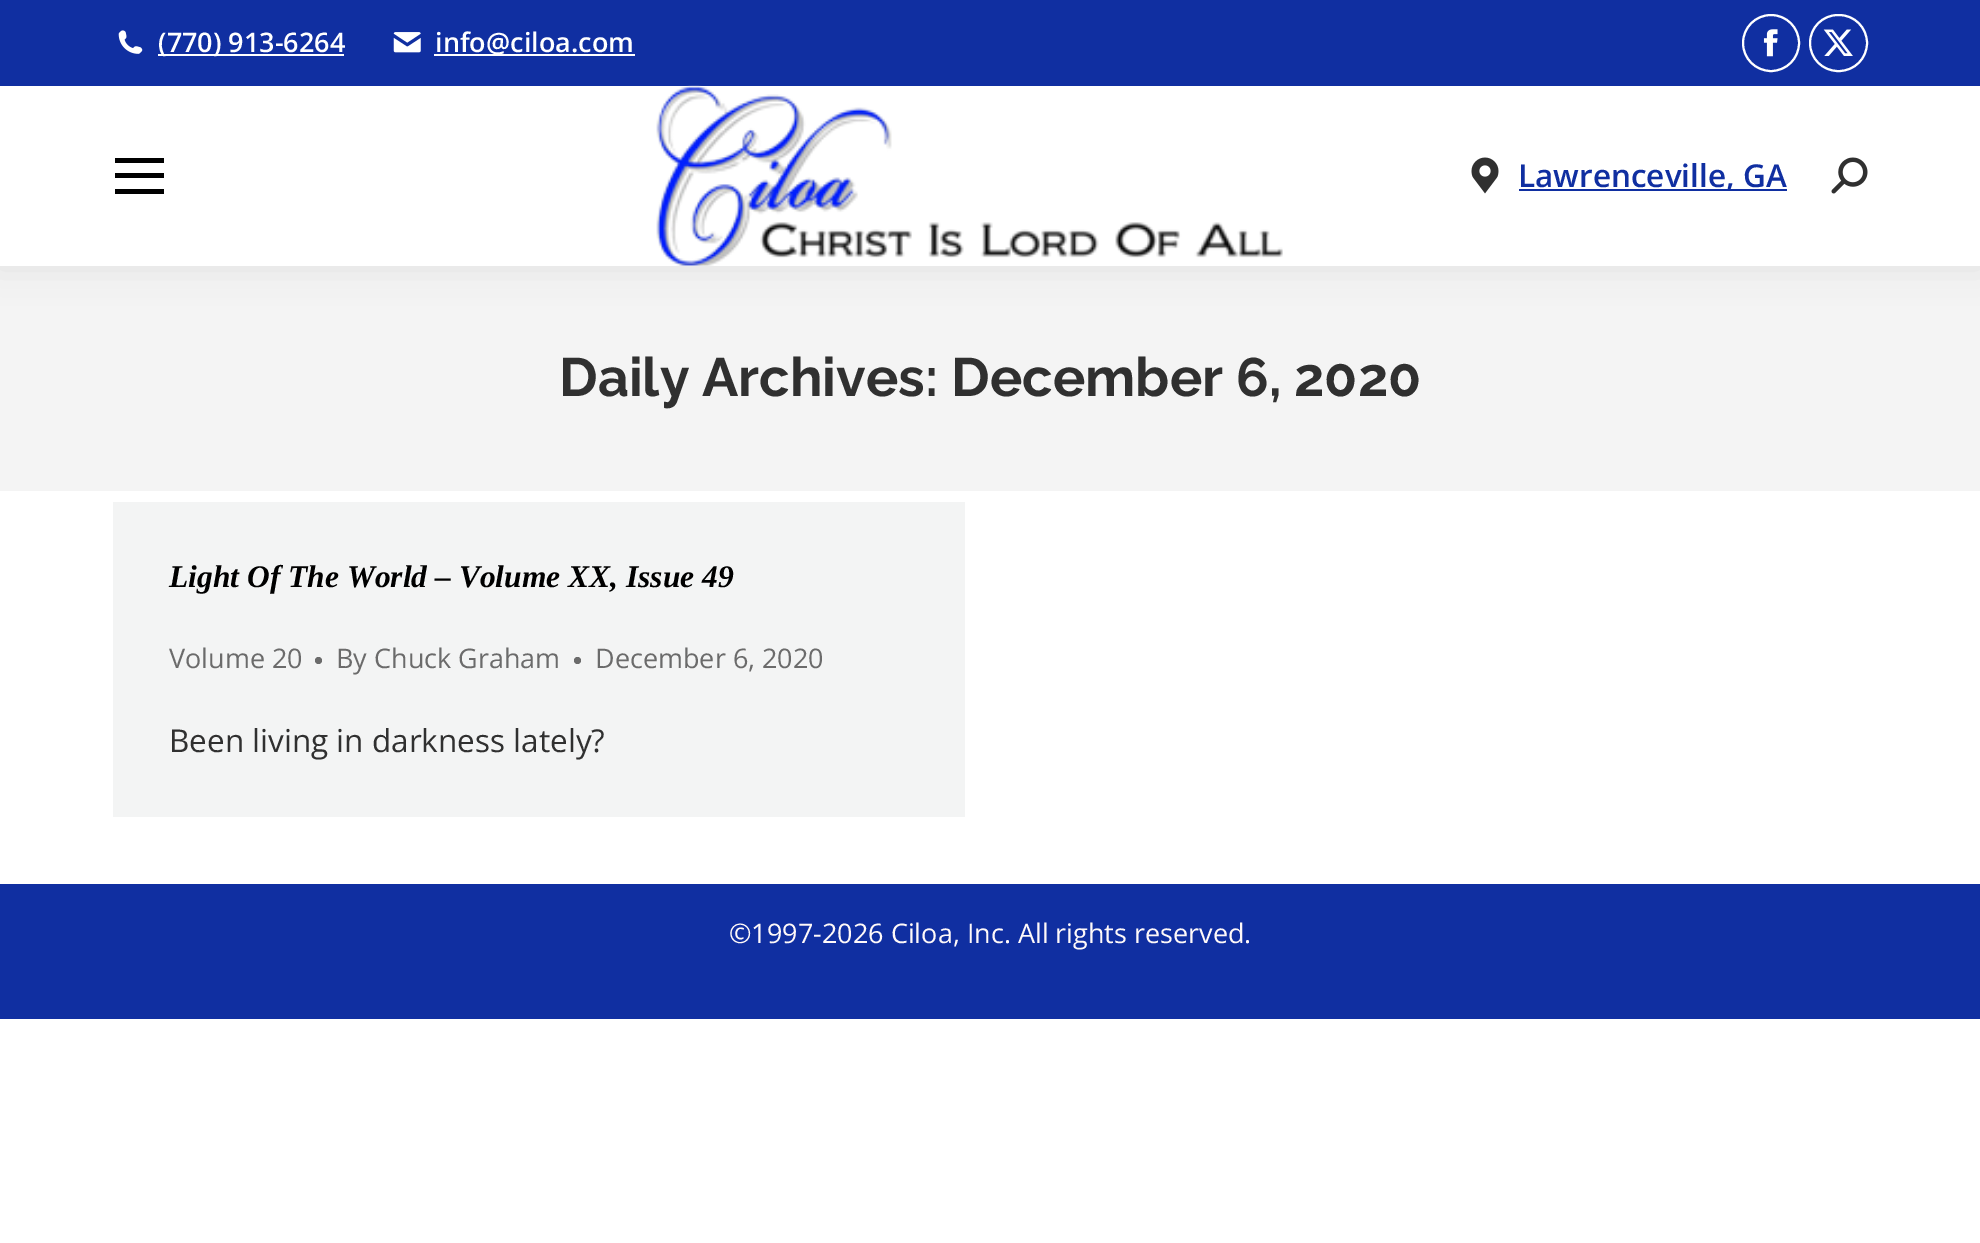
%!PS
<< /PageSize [1980 1243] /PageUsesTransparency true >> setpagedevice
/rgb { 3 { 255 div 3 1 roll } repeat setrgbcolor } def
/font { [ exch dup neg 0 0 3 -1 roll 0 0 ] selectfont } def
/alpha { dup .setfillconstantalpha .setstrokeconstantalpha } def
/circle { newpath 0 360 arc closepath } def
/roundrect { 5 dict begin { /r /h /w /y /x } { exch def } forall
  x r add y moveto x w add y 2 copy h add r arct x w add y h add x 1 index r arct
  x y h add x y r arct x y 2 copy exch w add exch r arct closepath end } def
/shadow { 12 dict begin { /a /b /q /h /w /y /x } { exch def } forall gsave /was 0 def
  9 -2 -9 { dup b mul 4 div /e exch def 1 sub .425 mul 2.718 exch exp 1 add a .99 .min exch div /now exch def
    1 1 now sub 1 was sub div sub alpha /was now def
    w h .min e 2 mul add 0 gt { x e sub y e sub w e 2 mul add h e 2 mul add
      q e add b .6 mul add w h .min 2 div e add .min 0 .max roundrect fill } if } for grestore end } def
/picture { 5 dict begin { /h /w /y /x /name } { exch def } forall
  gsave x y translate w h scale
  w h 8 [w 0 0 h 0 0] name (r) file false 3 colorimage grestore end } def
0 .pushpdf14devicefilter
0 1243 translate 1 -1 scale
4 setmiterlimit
255 255 255 rgb
0 0 1980 1243 rectfill
244 244 244 rgb
0 266 1980 225 rectfill
0 0 0 rgb
-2 -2 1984 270 0 17 0.07 shadow
255 255 255 rgb
0 86 1980 180 rectfill
16 47 161 rgb
0 0 1980 86 rectfill
(img/1.rgb) 118 30 25 24 picture
255 255 255 rgb
158 54 186 2 rectfill
(img/2.rgb) 393 32 28 21 picture
434 54 201 2 rectfill
2 setlinewidth
1771 43 28 circle stroke
(img/3.rgb) 1763 29 15 28 picture
1810 15 57 56 28 roundrect stroke
(img/4.rgb) 1823 29 30 27 picture
[
  [115 158 49 5 0 0 0]
  [115 173 49 5 0 0 0]
  [115 189 49 5 0 0 0]
] { aload pop rgb rectfill } forall
(img/5.rgb) 656 85 627 181 picture
(img/6.rgb) 1471 157 28 37 picture
16 47 161 rgb
1519 189 268 2 rectfill
(img/7.rgb) 1831 157 37 37 picture
243 244 244 rgb
113 502 852 315 rectfill
107 107 107 rgb
318.5 660.5 3.5 circle fill
577.5 660.5 3.5 circle fill
16 47 161 rgb
0 884 1980 135 rectfill
/OpenSans-SemiBold 27 font
255 255 255 rgb
158 52 moveto (\(770\) 913-6264) show
435 52 moveto (info@ciloa.com) show
/OpenSans-SemiBold 31.5 font
16 47 161 rgb
1518 187 moveto (Lawrenceville, GA) show
/Raleway-Bold 54 font
48 48 48 rgb
559 396 moveto (Daily Archives: December 6, 2020) show
/LiberationSerif-BoldItalic 31.5 font
0 0 0 rgb
169 587 moveto (Light Of The World – Volume XX, Issue 49) show
/OpenSans-Regular 27 font
107 107 107 rgb
[
  [(Volume 20) 169 668]
  [(By Chuck Graham) 336 668]
  [(December 6, 2020) 595 668]
] { aload pop moveto show } forall
/OpenSans-Regular 31.5 font
48 48 48 rgb
169 752 moveto (Been living in darkness lately?) show
/OpenSans-Regular 27 font
255 249 249 rgb
729 943 moveto (©1997-2026 Ciloa, Inc. All rights reserved.) show
.poppdf14devicefilter showpage
